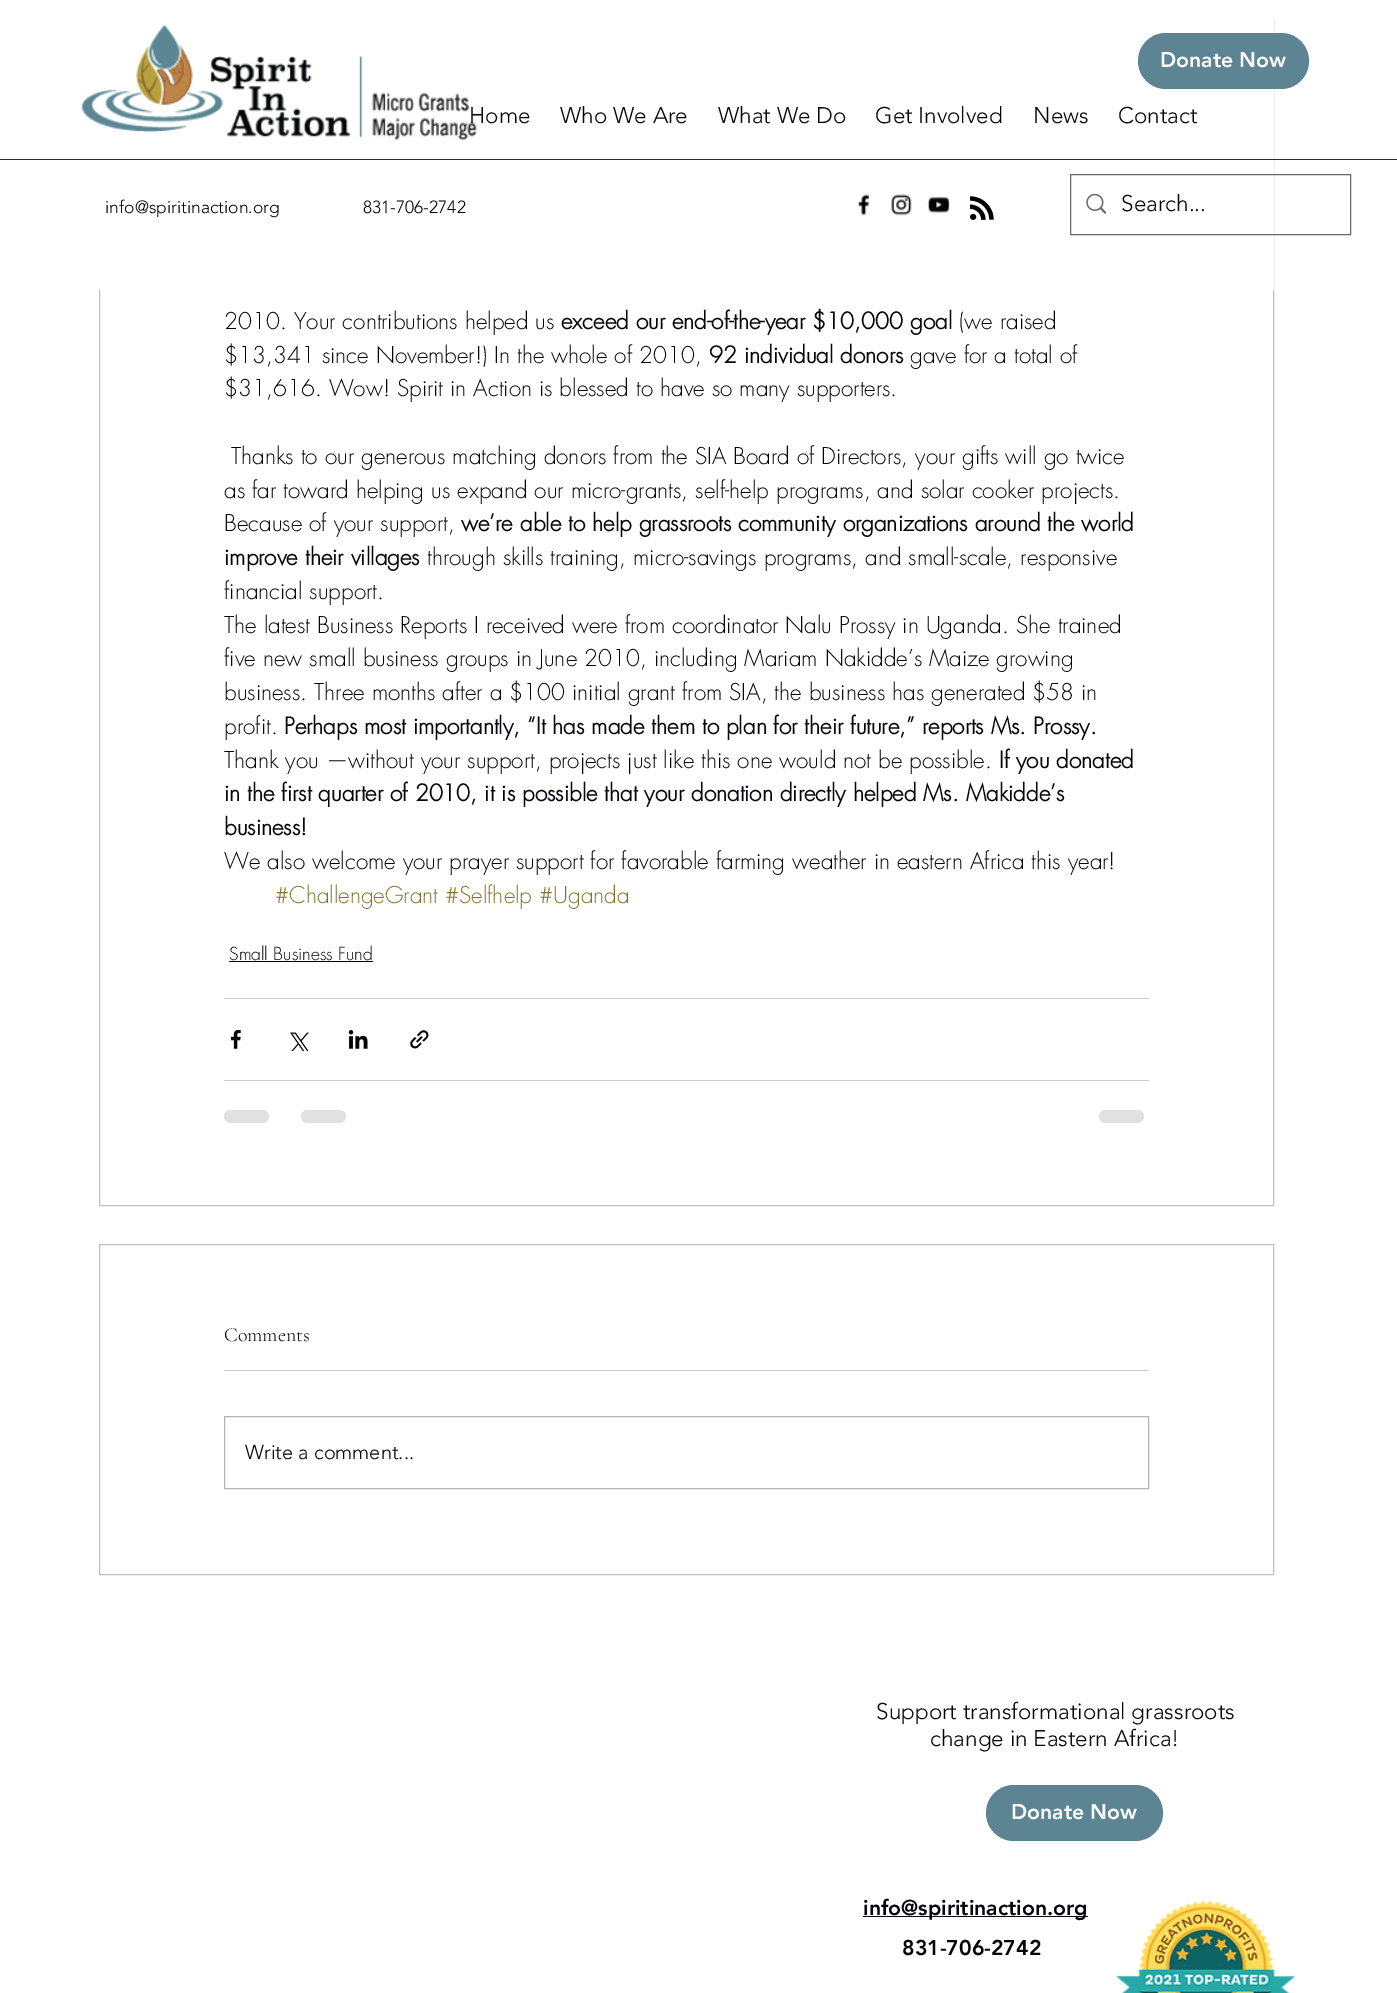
%!PS
<< /PageSize [1397 1993] >> setpagedevice
/rgb { 3 { 255 div 3 1 roll } repeat setrgbcolor } def
/font { [ exch dup neg 0 0 3 -1 roll 0 0 ] selectfont } def
/roundrect { 5 dict begin { /r /h /w /y /x } { exch def } forall
  x r add y moveto x w add y 2 copy h add r arct x w add y h add x 1 index r arct
  x y h add x y r arct x y 2 copy exch w add exch r arct closepath end } def
/picture { 5 dict begin { /h /w /y /x /name } { exch def } forall
  gsave x y translate w h scale
  w h 8 [w 0 0 h 0 0] name (r) file false 3 colorimage grestore end } def
0 1993 translate 1 -1 scale
4 setmiterlimit
255 255 255 rgb
0 0 1397 1993 rectfill
192 192 194 rgb
99.5 20.5 1174 1185 rectstroke
255 255 255 rgb
99 20 1175 270 rectfill
(img/1.rgb) 81 24 396 117 picture
92 132 147 rgb
1138 33 171 56 28 roundrect fill
42 42 48 rgb
0 159 1397 1 rectfill
(img/2.rgb) 858 194 12 22 picture
(img/3.rgb) 891 194 21 22 picture
(img/4.rgb) 927 196 23 18 picture
(img/5.rgb) 970 196 24 24 picture
104 104 109 rgb
1070.5 174.5 280 60 rectstroke
(img/6.rgb) 1086 194 20 20 picture
4 4 12 rgb
229 961 144 1 rectfill
205 205 206 rgb
224 998 925 1 rectfill
(img/7.rgb) 231 1030 10 19 picture
(img/8.rgb) 290 1032 19 19 picture
(img/9.rgb) 348 1030 20 19 picture
(img/10.rgb) 410 1030 19 19 picture
224 1080 925 1 rectfill
225 225 226 rgb
224 1110 45 13 6.5 roundrect fill
301 1110 45 13 6.5 roundrect fill
1099 1110 45 13 6.5 roundrect fill
192 192 194 rgb
99.5 1244.5 1174 330 rectstroke
205 205 206 rgb
224 1370 925 1 rectfill
180 180 182 rgb
224.5 1416.5 924 72 rectstroke
92 132 147 rgb
986 1785 177 56 28 roundrect fill
4 4 12 rgb
863 1916 225 1 rectfill
(img/11.rgb) 1116 1901 179 92 picture
/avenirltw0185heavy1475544-Black 21.25 font
255 255 255 rgb
1160 67 moveto (Donate Now) show
/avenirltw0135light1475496-Light 22.5 font
4 4 12 rgb
[
  [(Home) 469 123]
  [(Who We Are) 560 123]
  [(What We Do) 718 123]
  [(Get Involved) 875 123]
  [(News) 1033 123]
  [(Contact) 1118 123]
] { aload pop moveto show } forall
/avenirltw0135light1475496-Light 17.5 font
105 213 moveto (info@spiritinaction.org) show
363 213 moveto (831-706-2742) show
/avenirltw0135light1475496-Light 22.5 font
1121 211 moveto (Search...) show
/futura-Light 22.5 font
224 329 moveto (2010. Your contributions helped us) show
/futura-Bold 22.5 font
561 329 moveto (exceed our end-of-the-year $10,000 goal) show
/futura-Light 22.5 font
959 329 moveto (\(we raised) show
224 363 moveto ($13,341 since November!\) In the whole of 2010,) show
/futura-Bold 22.5 font
709 363 moveto (92 individual donors) show
/futura-Light 22.5 font
[
  [(gave for a total of) 910 363]
  [($31,616. Wow! Spirit in Action is blessed to have so many supporters.) 224 396]
  [(Thanks to our generous matching donors from the SIA Board of Directors, your gifts will go twice) 231 464]
  [(as far toward helping us expand our micro-grants, self-help programs, and solar cooker projects.) 224 498]
  [(Because of your support,) 224 531]
] { aload pop moveto show } forall
/futura-Bold 22.5 font
461 531 moveto (we’re able to help grassroots community organizations around the world) show
224 565 moveto (improve their villages) show
/futura-Light 22.5 font
[
  [(through skills training, micro-savings programs, and small-scale, responsive) 427 565]
  [(financial support.) 224 599]
  [(The latest Business Reports I received were from coordinator Nalu Prossy in Uganda. She trained) 224 633]
  [(five new small business groups in June 2010, including Mariam Nakidde’s Maize growing) 224 666]
  [(business. Three months after a $100 initial grant from SIA, the business has generated $58 in) 224 700]
  [(profit.) 224 734]
] { aload pop moveto show } forall
/futura-Bold 22.5 font
284 734 moveto (Perhaps most importantly, “It has made them to plan for their future,” reports Ms. Prossy.) show
/futura-Light 22.5 font
224 768 moveto (Thank you —without your support, projects just like this one would not be possible.) show
/futura-Bold 22.5 font
[
  [(If you donated) 999 768]
  [(in the first quarter of 2010, it is possible that your donation directly helped Ms. Makidde’s) 224 801]
  [(business!) 224 835]
] { aload pop moveto show } forall
/futura-Light 22.5 font
224 869 moveto (We also welcome your prayer support for favorable farming weather in eastern Africa this year!) show
131 116 45 rgb
275 903 moveto (#ChallengeGrant #Selfhelp #Uganda) show
/futura-Light 17.5 font
4 4 12 rgb
229 960 moveto (Small Business Fund) show
/CormorantGaramond-Light 20 font
224 1341 moveto (Comments) show
/avenirltw0135light1475496-Light 20 font
245 1459 moveto (Write a comment...) show
/avenirltw0135light1475496-Light 22.5 font
876 1719 moveto (Support transformational grassroots) show
930 1746 moveto (change in Eastern Africa!) show
/avenirltw0185heavy1475544-Black 21.25 font
255 255 255 rgb
1011 1819 moveto (Donate Now) show
4 4 12 rgb
863 1915 moveto (info@spiritinaction.org) show
902 1955 moveto (831-706-2742) show
showpage
